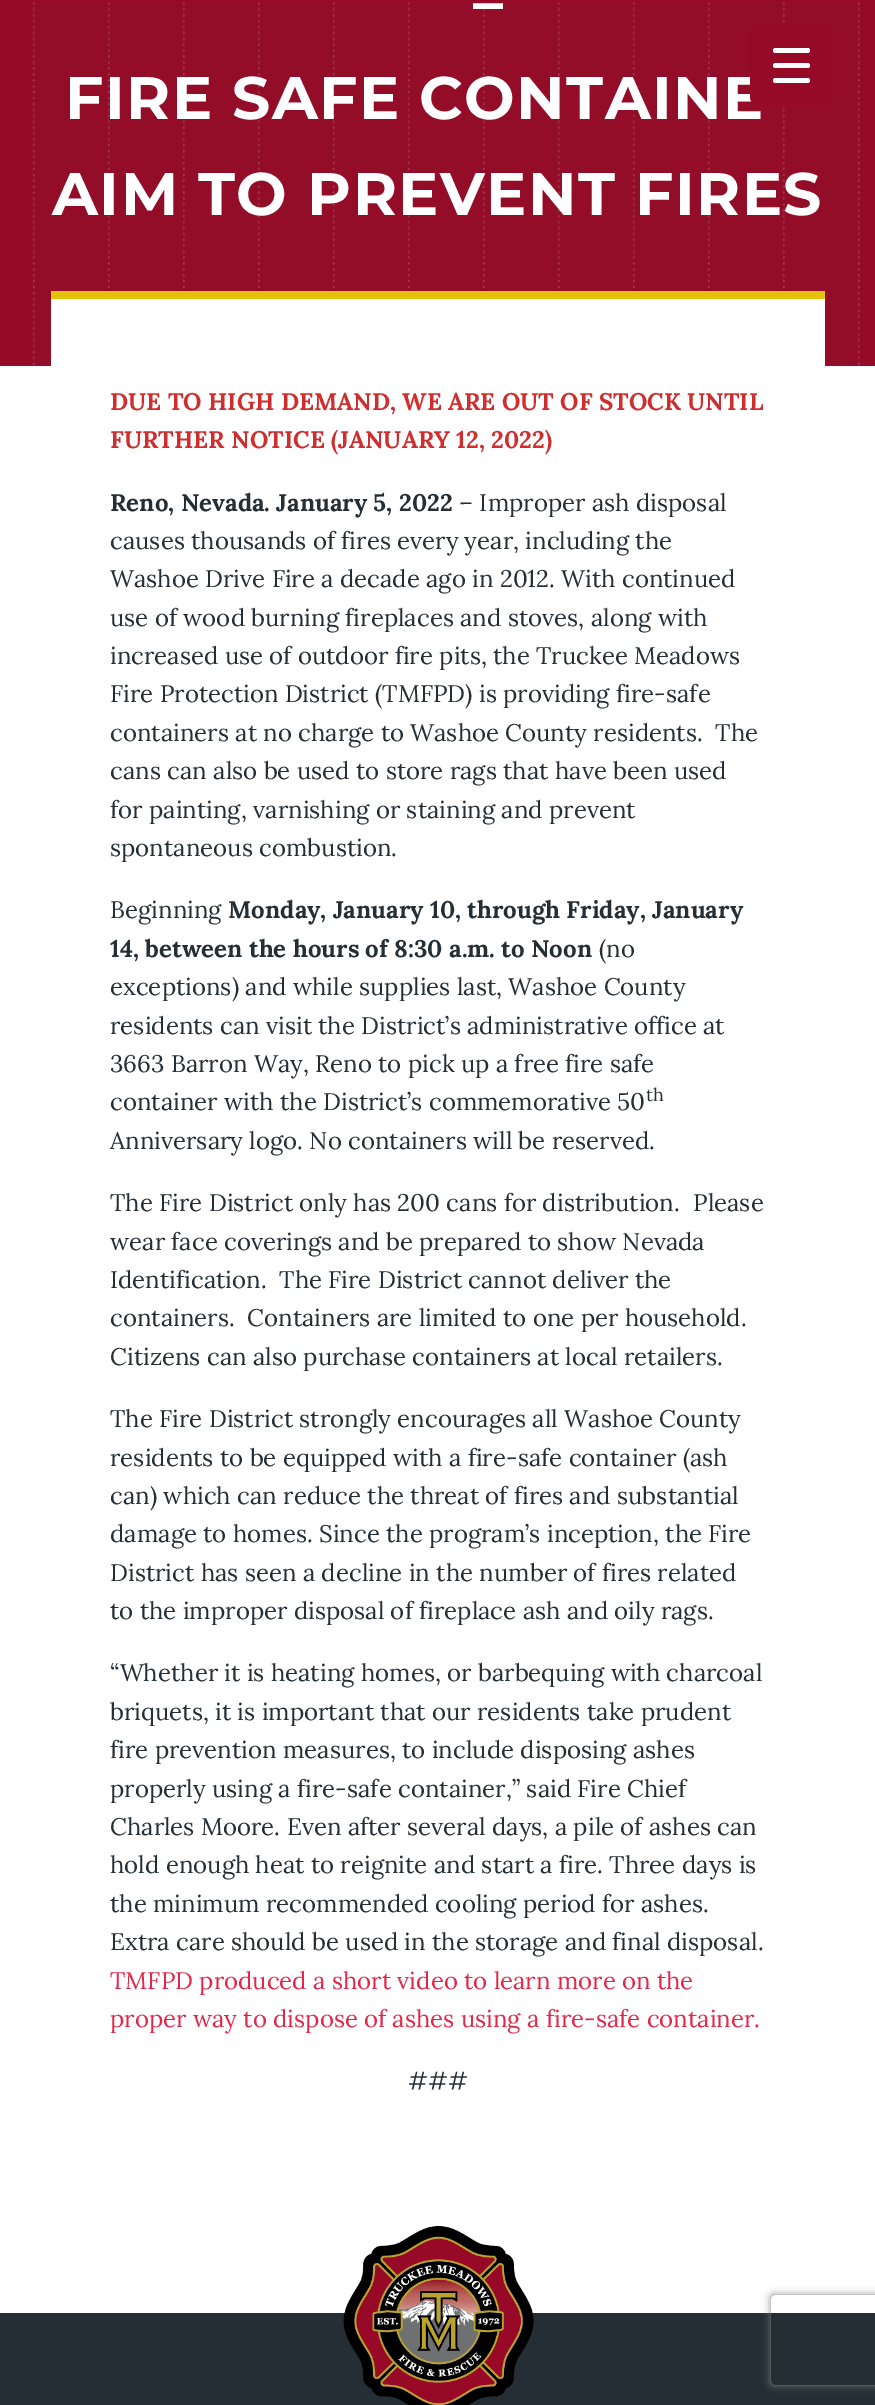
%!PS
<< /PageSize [875 2405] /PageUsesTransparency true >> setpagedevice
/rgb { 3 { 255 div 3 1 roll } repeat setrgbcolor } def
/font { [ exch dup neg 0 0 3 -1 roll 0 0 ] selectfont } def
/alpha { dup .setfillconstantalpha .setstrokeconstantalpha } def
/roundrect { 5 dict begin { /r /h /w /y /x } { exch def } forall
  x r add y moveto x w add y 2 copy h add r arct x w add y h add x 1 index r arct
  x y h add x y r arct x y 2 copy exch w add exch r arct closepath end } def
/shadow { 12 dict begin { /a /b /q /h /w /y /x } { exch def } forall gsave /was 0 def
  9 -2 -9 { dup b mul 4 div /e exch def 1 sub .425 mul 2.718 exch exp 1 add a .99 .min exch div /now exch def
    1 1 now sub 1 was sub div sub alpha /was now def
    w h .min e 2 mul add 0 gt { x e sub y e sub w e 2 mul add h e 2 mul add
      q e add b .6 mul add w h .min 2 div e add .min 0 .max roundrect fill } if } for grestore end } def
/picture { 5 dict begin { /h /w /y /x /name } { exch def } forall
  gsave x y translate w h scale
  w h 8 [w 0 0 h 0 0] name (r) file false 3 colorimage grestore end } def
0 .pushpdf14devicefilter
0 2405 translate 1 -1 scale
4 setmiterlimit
255 255 255 rgb
0 0 875 2405 rectfill
151 10 39 rgb
0 0 875 366 rectfill
(img/1.rgb) 32 1 828 365 picture
[
  [51 299 774 67 255 255 255]
  [51 291 774 8 229 193 11]
  [0 2313 875 92 37 46 53]
] { aload pop rgb rectfill } forall
(img/2.rgb) 343 2226 191 179 picture
gsave
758 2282 moveto 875 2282 lineto 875 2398 lineto 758 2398 lineto closepath 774 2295 moveto 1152 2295 lineto 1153.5 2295 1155 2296.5 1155 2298 curveto 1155 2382 lineto 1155 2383.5 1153.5 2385 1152 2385 curveto 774 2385 lineto 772.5 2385 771 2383.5 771 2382 curveto 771 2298 lineto 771 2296.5 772.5 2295 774 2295 curveto closepath eoclip newpath
128 128 128 rgb
771 2295 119 90 3 4 1 shadow
grestore
/Montserrat-Bold 60 font
255 255 255 rgb
473 23 moveto 1.5 0 (–) ashow
65 119 moveto 1.5 0 (FIRE SAFE CONTAINE) ashow
52 215 moveto 1.5 0 (AIM TO PREVENT FIRES) ashow
151 10 39 rgb
750 23 83 82 8 roundrect fill
255 255 255 rgb
773 63 37 5 2.5 roundrect fill
773 48 37 5 2.5 roundrect fill
773 78 37 5 2.5 roundrect fill
/Lora-Bold 24 font
207 46 46 rgb
110 410 moveto (DUE TO HIGH DEMAND, WE ARE OUT OF STOCK UNTIL) show
110 448 moveto (FURTHER NOTICE \(JANUARY 12, 2022\)) show
37 46 53 rgb
110 511 moveto (Reno, Nevada. January 5, 2022) show
/Lora-Regular 24 font
[
  [(– Improper ash disposal) 459 511]
  [(causes thousands of fires every year, including the) 110 549]
  [(Washoe Drive Fire a decade ago in 2012. With continued) 110 587]
  [(use of wood burning fireplaces and stoves, along with) 110 626]
  [(increased use of outdoor fire pits, the Truckee Meadows) 110 664]
  [(Fire Protection District \(TMFPD\) is providing fire-safe) 110 702]
  [(containers at no charge to Washoe County residents.  The) 110 741]
  [(cans can also be used to store rags that have been used) 110 779]
  [(for painting, varnishing or staining and prevent) 110 818]
  [(spontaneous combustion.) 110 856]
  [(Beginning) 110 918]
] { aload pop moveto show } forall
/Lora-Bold 24 font
228 918 moveto (Monday, January 10, through Friday, January) show
110 957 moveto (14, between the hours of 8:30 a.m. to Noon) show
/Lora-Regular 24 font
[
  [(\(no) 599 957]
  [(exceptions\) and while supplies last, Washoe County) 110 995]
  [(residents can visit the District’s administrative office at) 110 1034]
  [(3663 Barron Way, Reno to pick up a free fire safe) 110 1072]
  [(container with the District’s commemorative 50) 110 1110]
] { aload pop moveto show } forall
/Lora-Regular 18 font
646 1101 moveto (th) show
/Lora-Regular 24 font
[
  [(Anniversary logo. No containers will be reserved.) 110 1149]
  [(The Fire District only has 200 cans for distribution.) 110 1211]
  [(Please) 693 1211]
  [(wear face coverings and be prepared to show Nevada) 110 1250]
  [(Identification.  The Fire District cannot deliver the) 110 1288]
  [(containers.  Containers are limited to one per household.) 110 1326]
  [(Citizens can also purchase containers at local retailers.) 110 1365]
  [(The Fire District strongly encourages all Washoe County) 110 1427]
  [(residents to be equipped with a fire-safe container \(ash) 110 1466]
  [(can\) which can reduce the threat of fires and substantial) 110 1504]
  [(damage to homes. Since the program’s inception, the Fire) 110 1542]
  [(District has seen a decline in the number of fires related) 110 1581]
  [(to the improper disposal of fireplace ash and oily rags.) 110 1619]
  [(“Whether it is heating homes, or barbequing with charcoal) 110 1681]
  [(briquets, it is important that our residents take prudent) 110 1720]
  [(fire prevention measures, to include disposing ashes) 110 1758]
  [(properly using a fire-safe container,” said Fire Chief) 110 1797]
  [(Charles Moore. Even after several days, a pile of ashes can) 110 1835]
  [(hold enough heat to reignite and start a fire. Three days is) 110 1873]
  [(the minimum recommended cooling period for ashes.) 110 1912]
  [(Extra care should be used in the storage and final disposal.) 110 1950]
] { aload pop moveto show } forall
226 40 74 rgb
110 1989 moveto (TMFPD produced a short video to learn more on the) show
110 2027 moveto (proper way to dispose of ashes using a fire-safe container.) show
37 46 53 rgb
408 2089 moveto (###) show
.poppdf14devicefilter showpage
